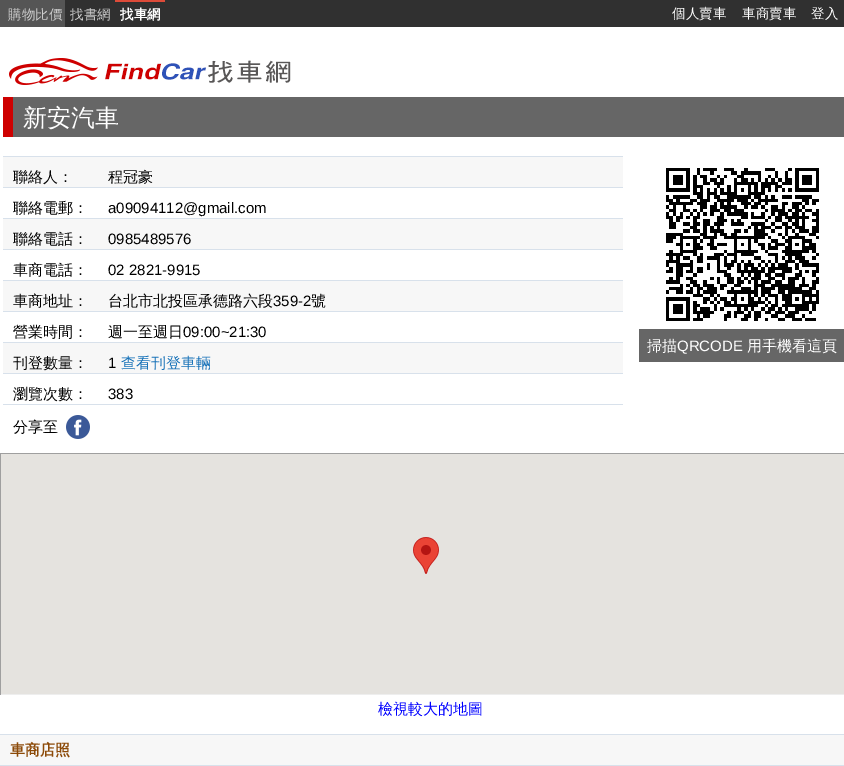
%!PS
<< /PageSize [844 766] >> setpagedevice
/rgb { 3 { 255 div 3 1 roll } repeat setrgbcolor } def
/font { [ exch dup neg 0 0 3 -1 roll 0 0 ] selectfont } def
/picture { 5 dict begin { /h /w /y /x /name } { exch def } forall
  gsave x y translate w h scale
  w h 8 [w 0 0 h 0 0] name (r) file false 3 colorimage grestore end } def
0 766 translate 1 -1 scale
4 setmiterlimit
255 255 255 rgb
0 0 844 766 rectfill
[
  [65 0 779 27 48 48 48]
  [0 0 65 27 85 85 85]
  [115 0 50 2 221 75 57]
] { aload pop rgb rectfill } forall
(img/1.rgb) 9 58 282 27 picture
[
  [13 97 831 40 102 102 102]
  [3 97 10 40 206 0 0]
  [3 157 620 30 247 247 247]
  [3 156 620 1 216 225 235]
  [3 187 620 1 216 225 235]
  [3 219 620 30 247 247 247]
  [3 218 620 1 216 225 235]
  [3 249 620 1 216 225 235]
  [3 281 620 30 247 247 247]
  [3 280 620 1 216 225 235]
  [3 311 620 1 216 225 235]
  [3 343 620 30 247 247 247]
  [3 342 620 1 216 225 235]
  [3 373 620 1 216 225 235]
  [3 404 620 1 216 225 235]
] { aload pop rgb rectfill } forall
(img/2.rgb) 66 415 24 24 picture
(img/3.rgb) 666 168 153 153 picture
[
  [639 329 205 33 102 102 102]
  [0 453 844 1 159 159 159]
  [0 694 844 1 238 238 238]
  [0 453 1 242 159 159 159]
  [1 454 843 240 229 227 223]
] { aload pop rgb rectfill } forall
(img/4.rgb) 413 537 26 37 picture
[
  [0 735 844 30 247 247 247]
  [0 734 844 1 216 225 235]
  [0 765 844 1 216 225 235]
] { aload pop rgb rectfill } forall
/WenQuanYiZenHei-Medium 13.5 font
204 204 204 rgb
8 19 moveto (購物比價) show
70 19 moveto (找書網) show
/WenQuanYiZenHei-Bold 13.5 font
255 255 255 rgb
120 19 moveto (找車網) show
/WenQuanYiZenHei-Medium 13.5 font
[
  [(個人賣車) 672 18]
  [(車商賣車) 742 18]
  [(登入) 811 18]
] { aload pop moveto show } forall
/WenQuanYiZenHei-Medium 24 font
23 126 moveto (新安汽車) show
/WenQuanYiZenHei-Medium 15 font
0 0 0 rgb
[
  [(聯絡人：) 13 182]
  [(程冠豪) 108 182]
  [(聯絡電郵：) 13 213]
] { aload pop moveto show } forall
/LiberationSans-Regular 15 font
108 213 moveto (a09094112@gmail.com) show
/WenQuanYiZenHei-Medium 15 font
13 244 moveto (聯絡電話：) show
/LiberationSans-Regular 15 font
108 244 moveto (0985489576) show
/WenQuanYiZenHei-Medium 15 font
13 275 moveto (車商電話：) show
/LiberationSans-Regular 15 font
108 275 moveto (02 2821-9915) show
/WenQuanYiZenHei-Medium 15 font
13 306 moveto (車商地址：) show
108 306 moveto (台北市北投區承德路六段) show
/LiberationSans-Regular 15 font
273 306 moveto (359-2) show
/WenQuanYiZenHei-Medium 15 font
[
  [(號) 311 306]
  [(營業時間：) 13 337]
  [(週一至週日) 108 337]
] { aload pop moveto show } forall
/LiberationSans-Regular 15 font
183 337 moveto (09:00~21:30) show
/WenQuanYiZenHei-Medium 15 font
13 368 moveto (刊登數量：) show
/LiberationSans-Regular 15 font
108 368 moveto (1) show
/WenQuanYiZenHei-Medium 15 font
25 115 185 rgb
121 368 moveto (查看刊登車輛) show
0 0 0 rgb
13 399 moveto (瀏覽次數：) show
/LiberationSans-Regular 15 font
108 399 moveto (383) show
/WenQuanYiZenHei-Medium 15 font
13 432 moveto (分享至) show
255 255 255 rgb
647 351 moveto (掃描) show
/LiberationSans-Regular 15 font
677 351 moveto (QRCODE) show
/WenQuanYiZenHei-Medium 15 font
747 351 moveto (用手機看這頁) show
0 0 255 rgb
378 714 moveto (檢視較大的地圖) show
/WenQuanYiZenHei-Bold 15 font
140 74 8 rgb
10 755 moveto (車商店照) show
showpage
